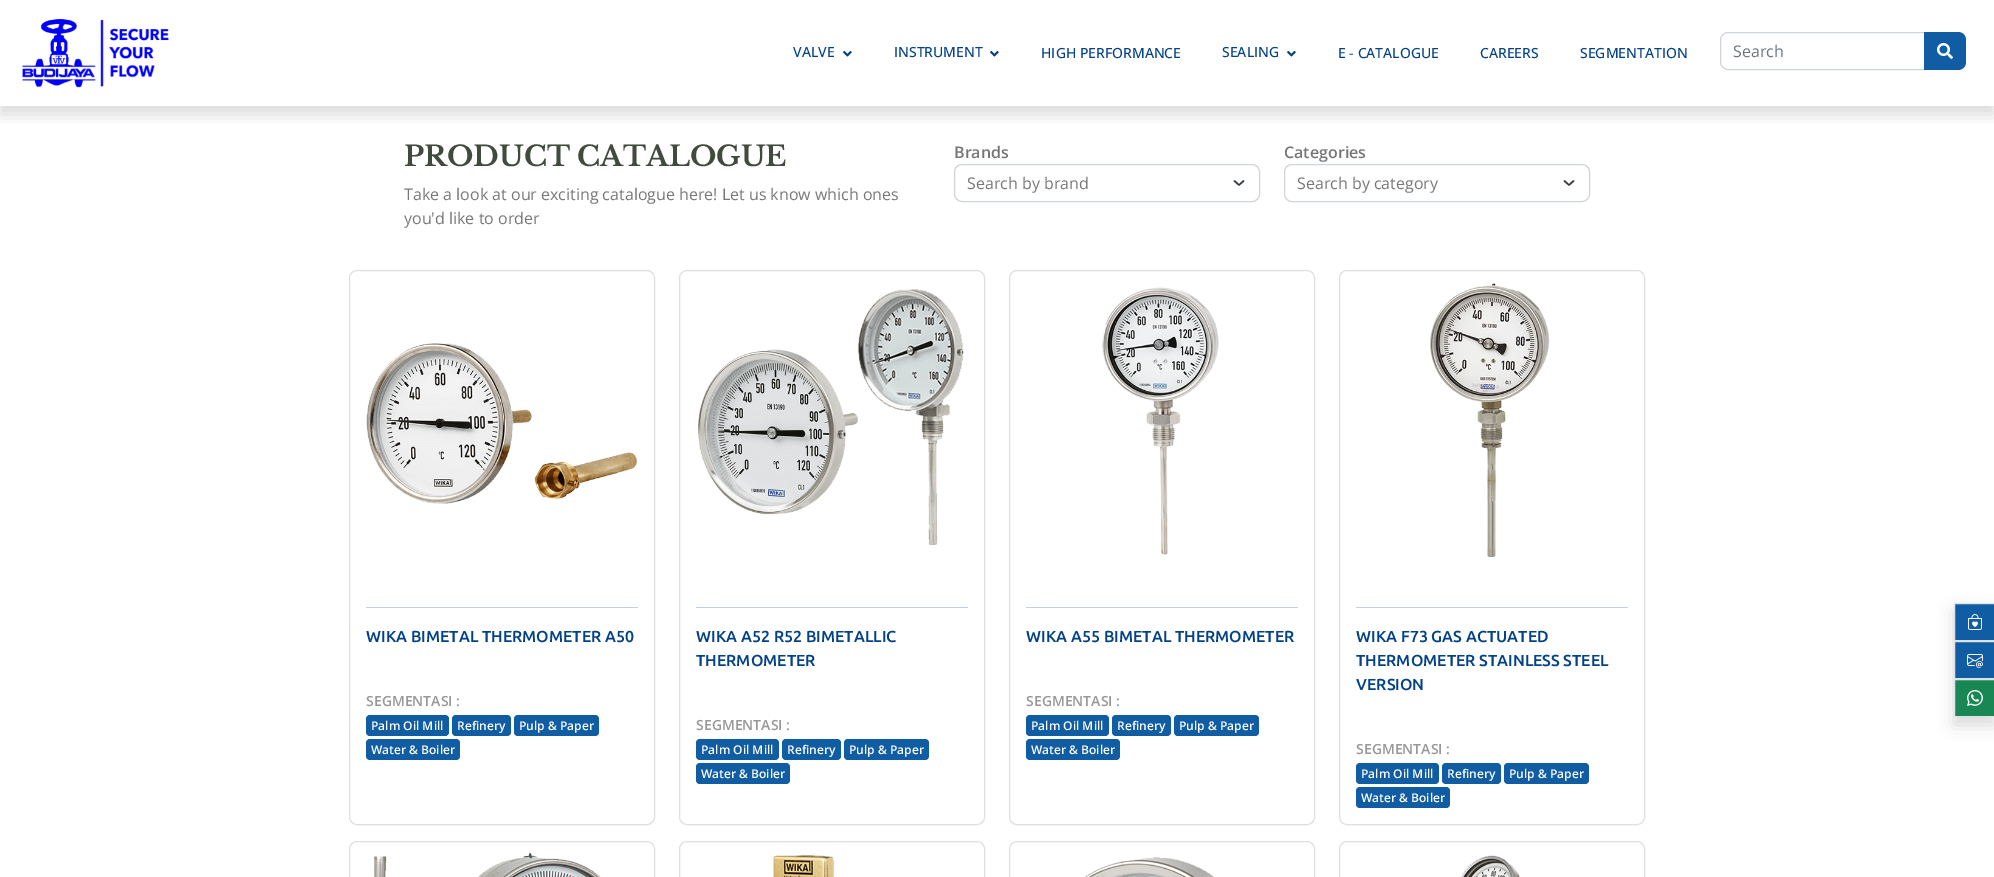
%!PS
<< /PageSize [1994 877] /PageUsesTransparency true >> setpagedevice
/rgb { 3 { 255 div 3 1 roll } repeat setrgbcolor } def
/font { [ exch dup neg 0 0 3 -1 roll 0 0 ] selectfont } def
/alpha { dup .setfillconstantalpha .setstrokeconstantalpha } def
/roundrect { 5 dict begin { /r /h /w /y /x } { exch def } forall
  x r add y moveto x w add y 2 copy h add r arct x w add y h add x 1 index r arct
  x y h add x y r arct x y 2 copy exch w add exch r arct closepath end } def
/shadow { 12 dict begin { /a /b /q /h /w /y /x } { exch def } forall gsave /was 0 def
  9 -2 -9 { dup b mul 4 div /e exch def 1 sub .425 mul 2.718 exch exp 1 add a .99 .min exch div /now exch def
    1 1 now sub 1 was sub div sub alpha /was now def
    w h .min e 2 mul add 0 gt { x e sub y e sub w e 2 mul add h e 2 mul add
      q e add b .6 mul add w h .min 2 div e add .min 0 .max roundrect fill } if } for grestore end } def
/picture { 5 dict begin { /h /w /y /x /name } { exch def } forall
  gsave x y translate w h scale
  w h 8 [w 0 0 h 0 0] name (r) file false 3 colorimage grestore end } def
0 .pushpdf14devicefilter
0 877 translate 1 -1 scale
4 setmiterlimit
255 255 255 rgb
0 0 1994 877 rectfill
gsave
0 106 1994 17 rectclip
0 0 0 rgb
0 8 1994 106 0 8 0.15 shadow
grestore
(img/1.rgb) 22 18 147 70 picture
(img/2.rgb) 843 51 9 6 picture
(img/2.rgb) 990 51 9 6 picture
(img/2.rgb) 1287 51 9 6 picture
206 212 218 rgb
1728 32.5 moveto 1924.5 32.5 lineto 1924.5 69.5 lineto 1728 69.5 lineto 1724 69.5 1720.5 66 1720.5 62 curveto 1720.5 40 lineto 1720.5 36 1724 32.5 1728 32.5 curveto closepath stroke
16 93 163 rgb
1924 32 moveto 1958 32 lineto 1962.5 32 1966 35.5 1966 40 curveto 1966 62 lineto 1966 66.5 1962.5 70 1958 70 curveto 1924 70 lineto closepath fill
(img/3.rgb) 1937 43 16 16 picture
52 58 64 rgb
1.5 setlinewidth
1 setlinecap
1 setlinejoin
1234.5 181 moveto 1239 185 lineto 1243.5 181 lineto stroke
206 212 218 rgb
1 setlinewidth
0 setlinecap
0 setlinejoin
954.5 164.5 305 37 7.5 roundrect stroke
52 58 64 rgb
1.5 setlinewidth
1 setlinecap
1 setlinejoin
1564.5 181 moveto 1569 185 lineto 1573.5 181 lineto stroke
206 212 218 rgb
1 setlinewidth
0 setlinecap
0 setlinejoin
1284.5 164.5 305 37 7.5 roundrect stroke
223 223 223 rgb
349.5 270.5 305 554 7.5 roundrect stroke
(img/4.rgb) 366 343 272 161 picture
192 208 225 rgb
366 607 272 1 rectfill
16 93 163 rgb
366 715 83 21 4 roundrect fill
452 715 59 21 4 roundrect fill
514 715 85 21 4 roundrect fill
366 739 94 21 4 roundrect fill
223 223 223 rgb
679.5 270.5 305 554 7.5 roundrect stroke
(img/5.rgb) 697 289 267 256 picture
192 208 225 rgb
696 607 272 1 rectfill
16 93 163 rgb
696 739 83 21 4 roundrect fill
782 739 59 21 4 roundrect fill
844 739 85 21 4 roundrect fill
696 763 94 21 4 roundrect fill
223 223 223 rgb
1009.5 270.5 305 554 7.5 roundrect stroke
(img/6.rgb) 1102 287 117 268 picture
192 208 225 rgb
1026 607 272 1 rectfill
16 93 163 rgb
1026 715 83 21 4 roundrect fill
1112 715 59 21 4 roundrect fill
1174 715 85 21 4 roundrect fill
1026 739 94 21 4 roundrect fill
223 223 223 rgb
1339.5 270.5 305 554 7.5 roundrect stroke
(img/7.rgb) 1430 283 120 275 picture
192 208 225 rgb
1356 607 272 1 rectfill
16 93 163 rgb
1356 763 83 21 4 roundrect fill
1442 763 59 21 4 roundrect fill
1504 763 85 21 4 roundrect fill
1356 787 94 21 4 roundrect fill
223 223 223 rgb
349.5 841.5 305 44 7.5 roundrect stroke
(img/8.rgb) 374 852 227 25 picture
679.5 841.5 305 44 7.5 roundrect stroke
(img/9.rgb) 773 855 62 22 picture
1009.5 841.5 305 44 7.5 roundrect stroke
(img/10.rgb) 1084 857 131 20 picture
1339.5 841.5 305 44 7.5 roundrect stroke
(img/11.rgb) 1460 855 60 22 picture
0 0 0 rgb
1954 611 40 114 0 8 0.15 shadow
16 93 163 rgb
1954.5 603.5 moveto 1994.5 603.5 lineto 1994.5 640.5 lineto 1954.5 640.5 lineto closepath gsave fill grestore
222 226 230 rgb
stroke
(img/12.rgb) 1968 614 14 16 picture
16 93 163 rgb
1954.5 641.5 moveto 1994.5 641.5 lineto 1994.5 678.5 lineto 1954.5 678.5 lineto closepath gsave fill grestore
222 226 230 rgb
stroke
(img/13.rgb) 1967 654 16 14 picture
25 135 84 rgb
1954.5 679.5 moveto 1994.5 679.5 lineto 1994.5 716.5 lineto 1954.5 716.5 lineto closepath gsave fill grestore
222 226 230 rgb
stroke
(img/14.rgb) 1967 690 16 16 picture
/OpenSans-Medium 14 font
3 66 133 rgb
[
  [(VALVE) 793 57]
  [(INSTRUMENT) 894 57]
  [(HIGH PERFORMANCE) 1041 58]
  [(SEALING) 1222 57]
  [(E - CATALOGUE) 1338 58]
  [(CAREERS) 1480 58]
  [(SEGMENTATION) 1580 58]
] { aload pop moveto show } forall
/OpenSans-Regular 16 font
108 117 125 rgb
1733 57 moveto (Search) show
/LibreBaskerville-Bold 28 font
64 74 61 rgb
404 166 moveto (PRODUCT CATALOGUE) show
/OpenSans-Regular 16 font
119 119 119 rgb
404 200 moveto (Take a look at our exciting catalogue here! Let us know which ones) show
404 224 moveto (you'd like to order) show
/OpenSans-SemiBold 16 font
954 158 moveto (Brands) show
/OpenSans-Regular 16 font
967 189 moveto (Search by brand) show
/OpenSans-SemiBold 16 font
1284 158 moveto (Categories) show
/OpenSans-Regular 16 font
1297 189 moveto (Search by category) show
/Ubuntu-Medium 16 font
3 66 133 rgb
366 642 moveto (WIKA BIMETAL THERMOMETER A50) show
/OpenSans-SemiBold 14 font
152 152 152 rgb
366 706 moveto (SEGMENTASI :) show
/OpenSans-SemiBold 12 font
255 255 255 rgb
[
  [(Palm Oil Mill) 371 730]
  [(Refinery) 457 730]
  [(Pulp & Paper) 519 730]
  [(Water & Boiler) 371 754]
] { aload pop moveto show } forall
/Ubuntu-Medium 16 font
3 66 133 rgb
696 642 moveto (WIKA A52 R52 BIMETALLIC) show
696 666 moveto (THERMOMETER) show
/OpenSans-SemiBold 14 font
152 152 152 rgb
696 730 moveto (SEGMENTASI :) show
/OpenSans-SemiBold 12 font
255 255 255 rgb
[
  [(Palm Oil Mill) 701 754]
  [(Refinery) 787 754]
  [(Pulp & Paper) 849 754]
  [(Water & Boiler) 701 778]
] { aload pop moveto show } forall
/Ubuntu-Medium 16 font
3 66 133 rgb
1026 642 moveto (WIKA A55 BIMETAL THERMOMETER) show
/OpenSans-SemiBold 14 font
152 152 152 rgb
1026 706 moveto (SEGMENTASI :) show
/OpenSans-SemiBold 12 font
255 255 255 rgb
[
  [(Palm Oil Mill) 1031 730]
  [(Refinery) 1117 730]
  [(Pulp & Paper) 1179 730]
  [(Water & Boiler) 1031 754]
] { aload pop moveto show } forall
/Ubuntu-Medium 16 font
3 66 133 rgb
[
  [(WIKA F73 GAS ACTUATED) 1356 642]
  [(THERMOMETER STAINLESS STEEL) 1356 666]
  [(VERSION) 1356 690]
] { aload pop moveto show } forall
/OpenSans-SemiBold 14 font
152 152 152 rgb
1356 754 moveto (SEGMENTASI :) show
/OpenSans-SemiBold 12 font
255 255 255 rgb
[
  [(Palm Oil Mill) 1361 778]
  [(Refinery) 1447 778]
  [(Pulp & Paper) 1509 778]
  [(Water & Boiler) 1361 802]
] { aload pop moveto show } forall
.poppdf14devicefilter showpage
